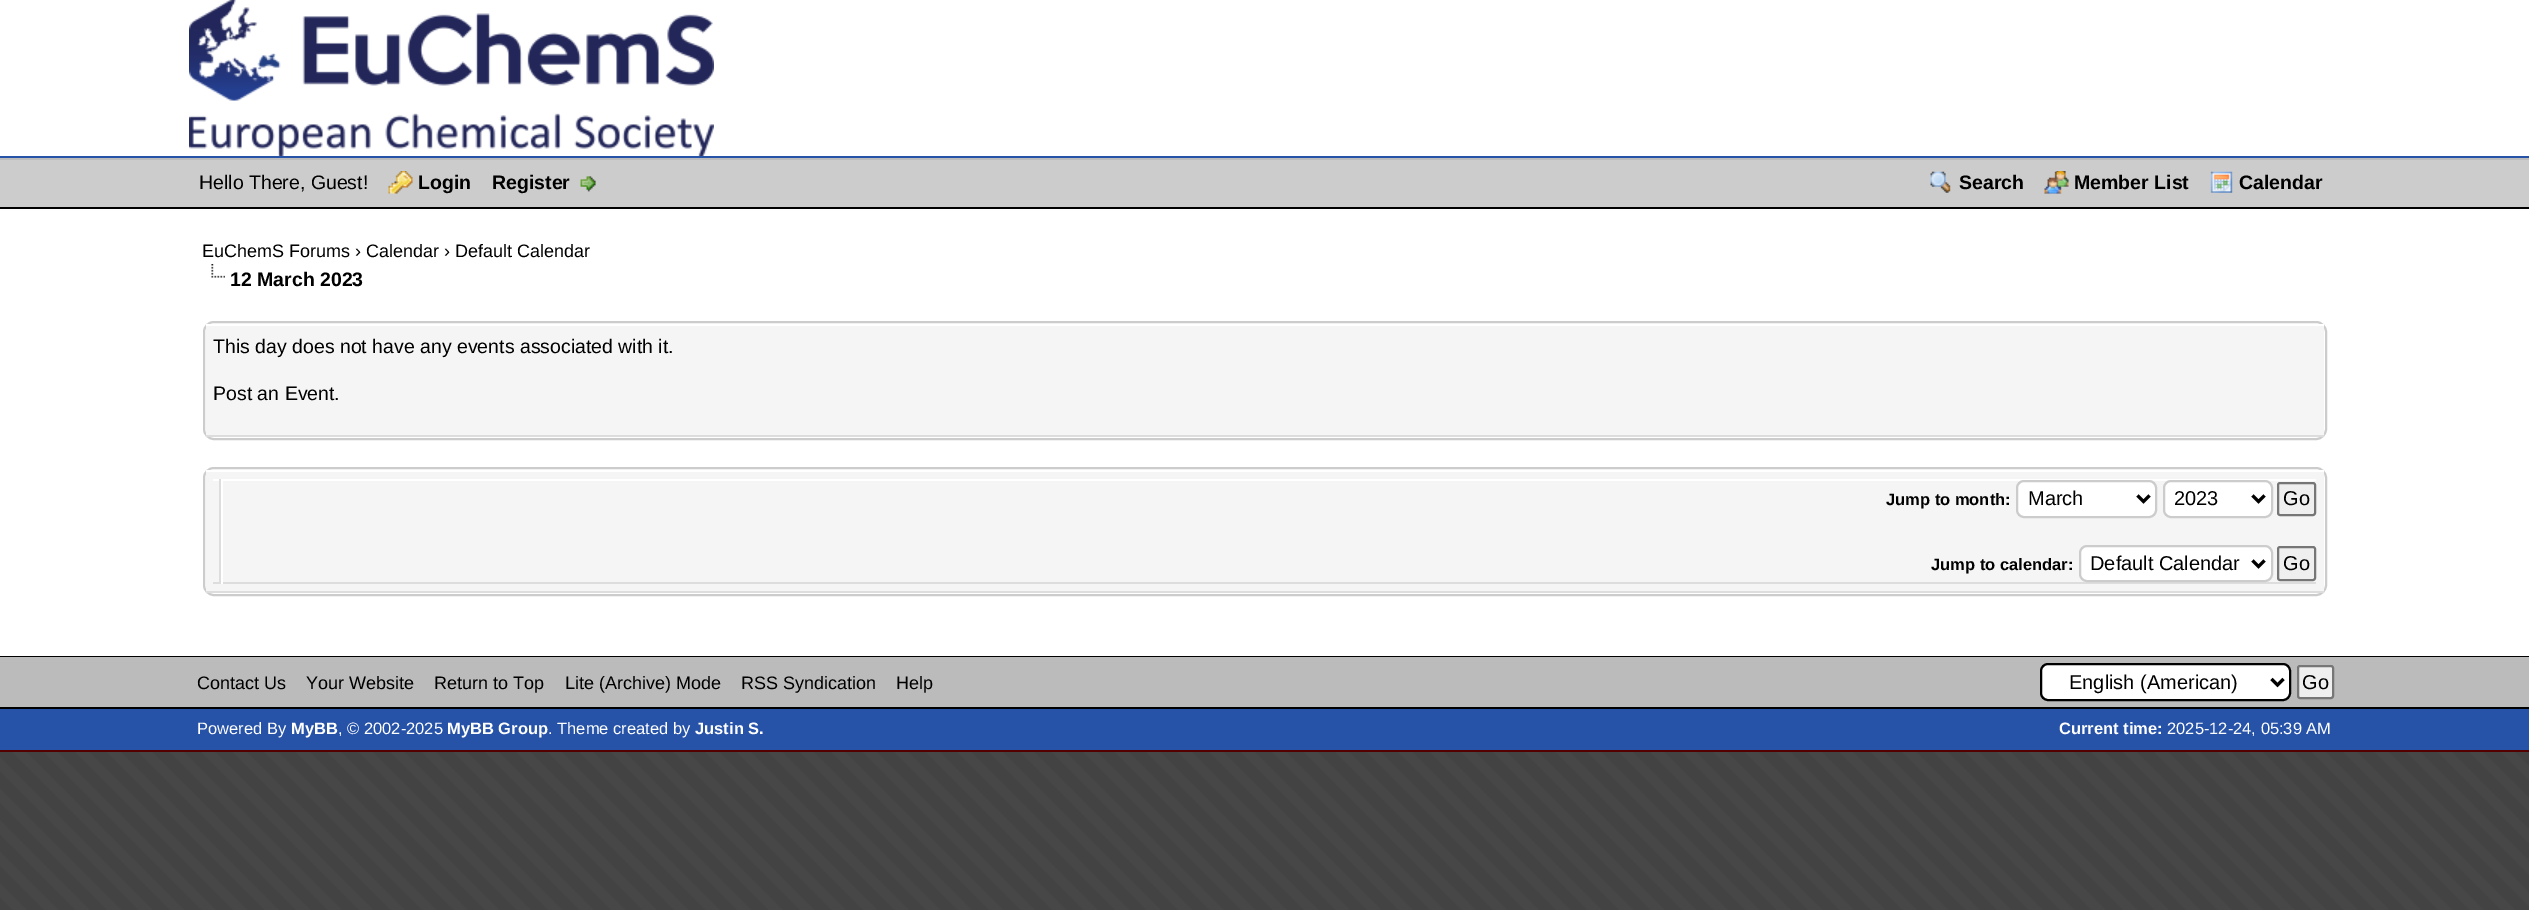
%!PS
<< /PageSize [2529 910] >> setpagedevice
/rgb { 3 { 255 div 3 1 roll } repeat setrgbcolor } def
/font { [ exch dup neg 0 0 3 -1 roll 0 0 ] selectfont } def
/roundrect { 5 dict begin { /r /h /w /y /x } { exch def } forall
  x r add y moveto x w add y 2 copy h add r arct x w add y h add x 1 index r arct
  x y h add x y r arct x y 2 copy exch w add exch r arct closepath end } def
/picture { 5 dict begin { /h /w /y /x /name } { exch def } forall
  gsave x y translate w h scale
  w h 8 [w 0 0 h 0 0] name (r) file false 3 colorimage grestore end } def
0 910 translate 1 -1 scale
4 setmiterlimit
255 255 255 rgb
0 0 2529 910 rectfill
(img/1.rgb) 0 752 2529 158 picture
38 82 168 rgb
0 156 2529 2 rectfill
(img/2.rgb) 189 0 525 156 picture
[
  [0 160 2529 47 204 204 204]
  [0 158 2529 2 187 187 187]
  [0 207 2529 2 0 0 0]
] { aload pop rgb rectfill } forall
(img/3.rgb) 388 171 25 23 picture
(img/4.rgb) 580 176 16 16 picture
(img/5.rgb) 1930 171 21 22 picture
(img/6.rgb) 2044 171 25 23 picture
(img/7.rgb) 2210 171 23 22 picture
0 656 2529 1 rectfill
(img/8.rgb) 211 264 14 14 picture
204 204 204 rgb
2 setlinewidth
204 322 2122 117 10 roundrect stroke
[
  [206 326 2118 109 245 245 245]
  [206 324 2118 2 255 255 255]
  [206 435 2118 2 221 221 221]
] { aload pop rgb rectfill } forall
204 204 204 rgb
204 468 2122 127 10 roundrect stroke
[
  [206 472 2118 119 245 245 245]
  [206 470 2118 2 255 255 255]
  [206 591 2118 2 221 221 221]
  [213 479 2103 2 255 255 255]
  [219 479 2 105 221 221 221]
  [213 582 2103 2 221 221 221]
  [221 479 2 105 255 255 255]
] { aload pop rgb rectfill } forall
2017 481 139 36 7 roundrect gsave fill grestore
204 204 204 rgb
stroke
0 0 0 rgb
3 setlinewidth
2137.5 495.5 moveto 2143.5 501.5 lineto 2149.5 495.5 lineto stroke
255 255 255 rgb
2164 481 108 36 7 roundrect gsave fill grestore
204 204 204 rgb
2 setlinewidth
stroke
0 0 0 rgb
3 setlinewidth
2252.5 495.5 moveto 2258.5 501.5 lineto 2264.5 495.5 lineto stroke
239 239 239 rgb
2278 483 37 32 2 roundrect gsave fill grestore
118 118 118 rgb
2 setlinewidth
stroke
255 255 255 rgb
2080 546 192 35 7 roundrect gsave fill grestore
204 204 204 rgb
stroke
0 0 0 rgb
3 setlinewidth
2252.5 560.5 moveto 2258.5 566.5 lineto 2264.5 560.5 lineto stroke
239 239 239 rgb
2278 547 37 33 2 roundrect gsave fill grestore
118 118 118 rgb
2 setlinewidth
stroke
187 187 187 rgb
0 657 2529 50 rectfill
255 255 255 rgb
2041 664 249 36 7 roundrect gsave fill grestore
0 0 0 rgb
stroke
3 setlinewidth
2271.5 679 moveto 2277.5 685 lineto 2283.5 679 lineto stroke
239 239 239 rgb
2298 666 35 32 2 roundrect gsave fill grestore
118 118 118 rgb
2 setlinewidth
stroke
[
  [0 709 2529 41 38 82 168]
  [0 707 2529 2 0 0 0]
  [0 750 2529 2 85 0 0]
] { aload pop rgb rectfill } forall
/LiberationSans-Regular 19.5 font
0 0 0 rgb
199 189 moveto (Hello There, Guest!) show
/LiberationSans-Bold 19.5 font
[
  [(Login) 418 189]
  [(Register) 492 189]
  [(Search) 1959 189]
  [(Member List) 2074 189]
  [(Calendar) 2239 189]
] { aload pop moveto show } forall
/LiberationSans-Regular 18 font
202 257 moveto (EuChemS Forums › Calendar › Default Calendar) show
/LiberationSans-Bold 19.5 font
230 286 moveto (12 March 2023) show
/LiberationSans-Regular 19.5 font
213 353 moveto (This day does not have any events associated with it.) show
213 400 moveto (Post an Event.) show
/LiberationSans-Bold 16.5 font
1886 505 moveto (Jump to month:) show
/LiberationSans-Regular 20 font
[
  [(March) 2028 505]
  [(2023) 2174 505]
  [(Go) 2283 505]
] { aload pop moveto show } forall
/LiberationSans-Bold 16.5 font
1931 570 moveto (Jump to calendar:) show
/LiberationSans-Regular 20 font
2090 570 moveto (Default Calendar) show
2283 570 moveto (Go) show
/LiberationSans-Regular 18 font
[
  [(Contact Us) 197 689]
  [(Your Website) 306 689]
  [(Return to Top) 434 689]
  [(Lite \(Archive\) Mode) 565 689]
  [(RSS Syndication) 741 689]
  [(Help) 896 689]
] { aload pop moveto show } forall
/LiberationSans-Regular 20 font
2069 689 moveto (English \(American\)) show
2302 689 moveto (Go) show
/LiberationSans-Regular 16.5 font
255 255 255 rgb
197 734 moveto (Powered By) show
/LiberationSans-Bold 16.5 font
291 734 moveto (MyBB) show
/LiberationSans-Regular 16.5 font
338 734 moveto (, © 2002-2025) show
/LiberationSans-Bold 16.5 font
447 734 moveto (MyBB Group) show
/LiberationSans-Regular 16.5 font
548 734 moveto (. Theme created by) show
/LiberationSans-Bold 16.5 font
695 734 moveto (Justin S.) show
2059 734 moveto (Current time:) show
/LiberationSans-Regular 16.5 font
2167 734 moveto (2025-12-24, 05:39 AM) show
showpage
